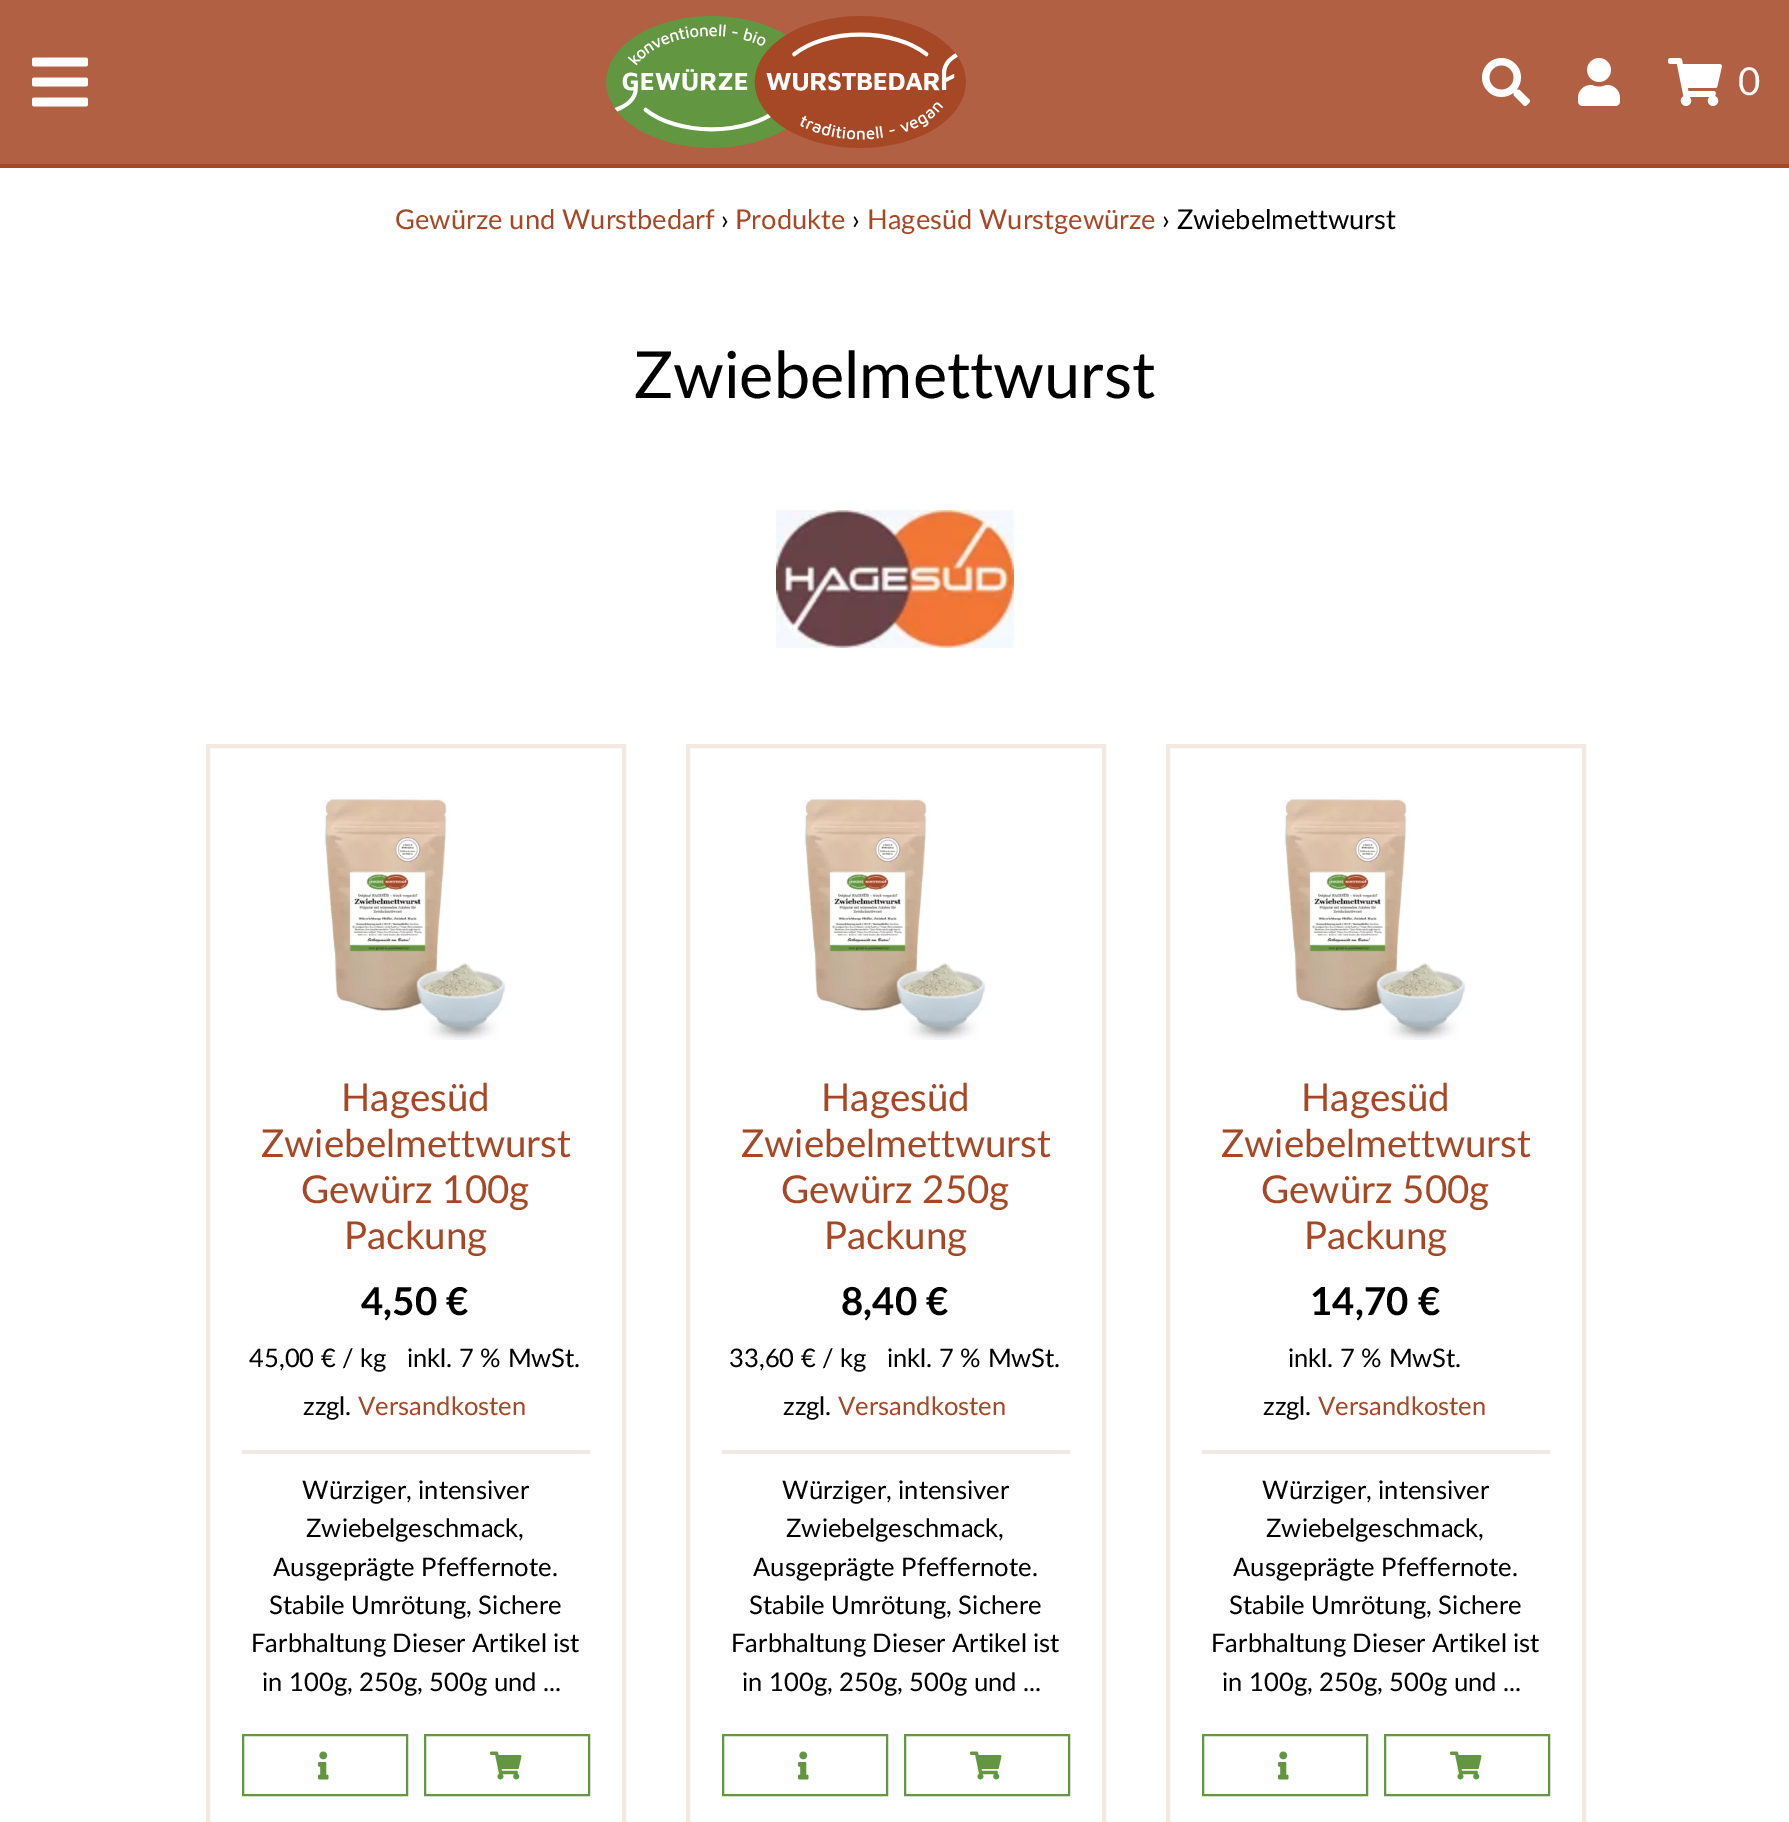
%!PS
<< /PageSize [1789 1822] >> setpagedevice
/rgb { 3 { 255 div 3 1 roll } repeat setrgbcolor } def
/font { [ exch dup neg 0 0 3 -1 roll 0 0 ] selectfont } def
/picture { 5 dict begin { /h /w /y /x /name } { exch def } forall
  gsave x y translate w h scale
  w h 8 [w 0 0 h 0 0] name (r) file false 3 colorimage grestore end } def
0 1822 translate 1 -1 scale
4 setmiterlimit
255 255 255 rgb
0 0 1789 1822 rectfill
178 96 67 rgb
0 0 1789 164 rectfill
166 72 38 rgb
0 164 1789 4 rectfill
(img/1.rgb) 32 57 56 50 picture
(img/2.rgb) 606 16 360 132 picture
(img/3.rgb) 1482 58 48 48 picture
(img/4.rgb) 1578 58 42 48 picture
(img/5.rgb) 1668 58 54 48 picture
(img/6.rgb) 776 510 238 138 picture
242 233 226 rgb
4 setlinewidth
208 746 416 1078 rectstroke
(img/7.rgb) 324 797 182 243 picture
242 1450 348 4 rectfill
99 150 64 rgb
2 setlinewidth
243 1735 164 60 rectstroke
(img/8.rgb) 318 1751 11 29 picture
425 1735 164 60 rectstroke
(img/9.rgb) 490 1751 32 29 picture
242 233 226 rgb
4 setlinewidth
688 746 416 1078 rectstroke
(img/7.rgb) 804 797 182 243 picture
722 1450 348 4 rectfill
99 150 64 rgb
2 setlinewidth
723 1735 164 60 rectstroke
(img/8.rgb) 798 1751 11 29 picture
905 1735 164 60 rectstroke
(img/9.rgb) 970 1751 32 29 picture
242 233 226 rgb
4 setlinewidth
1168 746 416 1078 rectstroke
(img/7.rgb) 1284 797 182 243 picture
1202 1450 348 4 rectfill
99 150 64 rgb
2 setlinewidth
1203 1735 164 60 rectstroke
(img/8.rgb) 1278 1751 11 29 picture
1385 1735 164 60 rectstroke
(img/9.rgb) 1450 1751 32 29 picture
/Lato-Regular 38.5 font
255 255 255 rgb
1738 95 moveto (0) show
/Lato-Regular 27.25 font
166 72 38 rgb
395 229 moveto (Gewürze und Wurstbedarf) show
0 0 0 rgb
721 229 moveto (›) show
166 72 38 rgb
735 229 moveto (Produkte) show
0 0 0 rgb
852 229 moveto (›) show
166 72 38 rgb
867 229 moveto (Hagesüd Wurstgewürze) show
0 0 0 rgb
1162 229 moveto (› Zwiebelmettwurst) show
/Lato-Regular 64.75 font
634 398 moveto (Zwiebelmettwurst) show
/Lato-Regular 38.5 font
166 72 38 rgb
[
  [(Hagesüd) 341 1111]
  [(Zwiebelmettwurst) 261 1157]
  [(Gewürz 100g) 301 1203]
  [(Packung) 344 1249]
] { aload pop moveto show } forall
/Lato-Bold 38.5 font
0 0 0 rgb
361 1315 moveto (4,50 €) show
/Lato-Regular 25.6 font
[
  [(45,00 € / kg) 249 1367]
  [(inkl. 7 % MwSt.) 407 1367]
  [(zzgl.) 303 1415]
] { aload pop moveto show } forall
166 72 38 rgb
358 1415 moveto (Versandkosten) show
0 0 0 rgb
[
  [(Würziger, intensiver) 302 1499]
  [(Zwiebelgeschmack,) 306 1537]
  [(Ausgeprägte Pfeffernote.) 273 1576]
  [(Stabile Umrötung, Sichere) 269 1614]
  [(Farbhaltung Dieser Artikel ist) 251 1652]
  [(in 100g, 250g, 500g und ...) 262 1691]
] { aload pop moveto show } forall
/Lato-Regular 38.5 font
166 72 38 rgb
[
  [(Hagesüd) 821 1111]
  [(Zwiebelmettwurst) 741 1157]
  [(Gewürz 250g) 781 1203]
  [(Packung) 824 1249]
] { aload pop moveto show } forall
/Lato-Bold 38.5 font
0 0 0 rgb
841 1315 moveto (8,40 €) show
/Lato-Regular 25.6 font
[
  [(33,60 € / kg) 729 1367]
  [(inkl. 7 % MwSt.) 887 1367]
  [(zzgl.) 783 1415]
] { aload pop moveto show } forall
166 72 38 rgb
838 1415 moveto (Versandkosten) show
0 0 0 rgb
[
  [(Würziger, intensiver) 782 1499]
  [(Zwiebelgeschmack,) 786 1537]
  [(Ausgeprägte Pfeffernote.) 753 1576]
  [(Stabile Umrötung, Sichere) 749 1614]
  [(Farbhaltung Dieser Artikel ist) 731 1652]
  [(in 100g, 250g, 500g und ...) 742 1691]
] { aload pop moveto show } forall
/Lato-Regular 38.5 font
166 72 38 rgb
[
  [(Hagesüd) 1301 1111]
  [(Zwiebelmettwurst) 1221 1157]
  [(Gewürz 500g) 1261 1203]
  [(Packung) 1304 1249]
] { aload pop moveto show } forall
/Lato-Bold 38.5 font
0 0 0 rgb
1310 1315 moveto (14,70 €) show
/Lato-Regular 25.6 font
1288 1367 moveto (inkl. 7 % MwSt.) show
1263 1415 moveto (zzgl.) show
166 72 38 rgb
1318 1415 moveto (Versandkosten) show
0 0 0 rgb
[
  [(Würziger, intensiver) 1262 1499]
  [(Zwiebelgeschmack,) 1266 1537]
  [(Ausgeprägte Pfeffernote.) 1233 1576]
  [(Stabile Umrötung, Sichere) 1229 1614]
  [(Farbhaltung Dieser Artikel ist) 1211 1652]
  [(in 100g, 250g, 500g und ...) 1222 1691]
] { aload pop moveto show } forall
showpage
